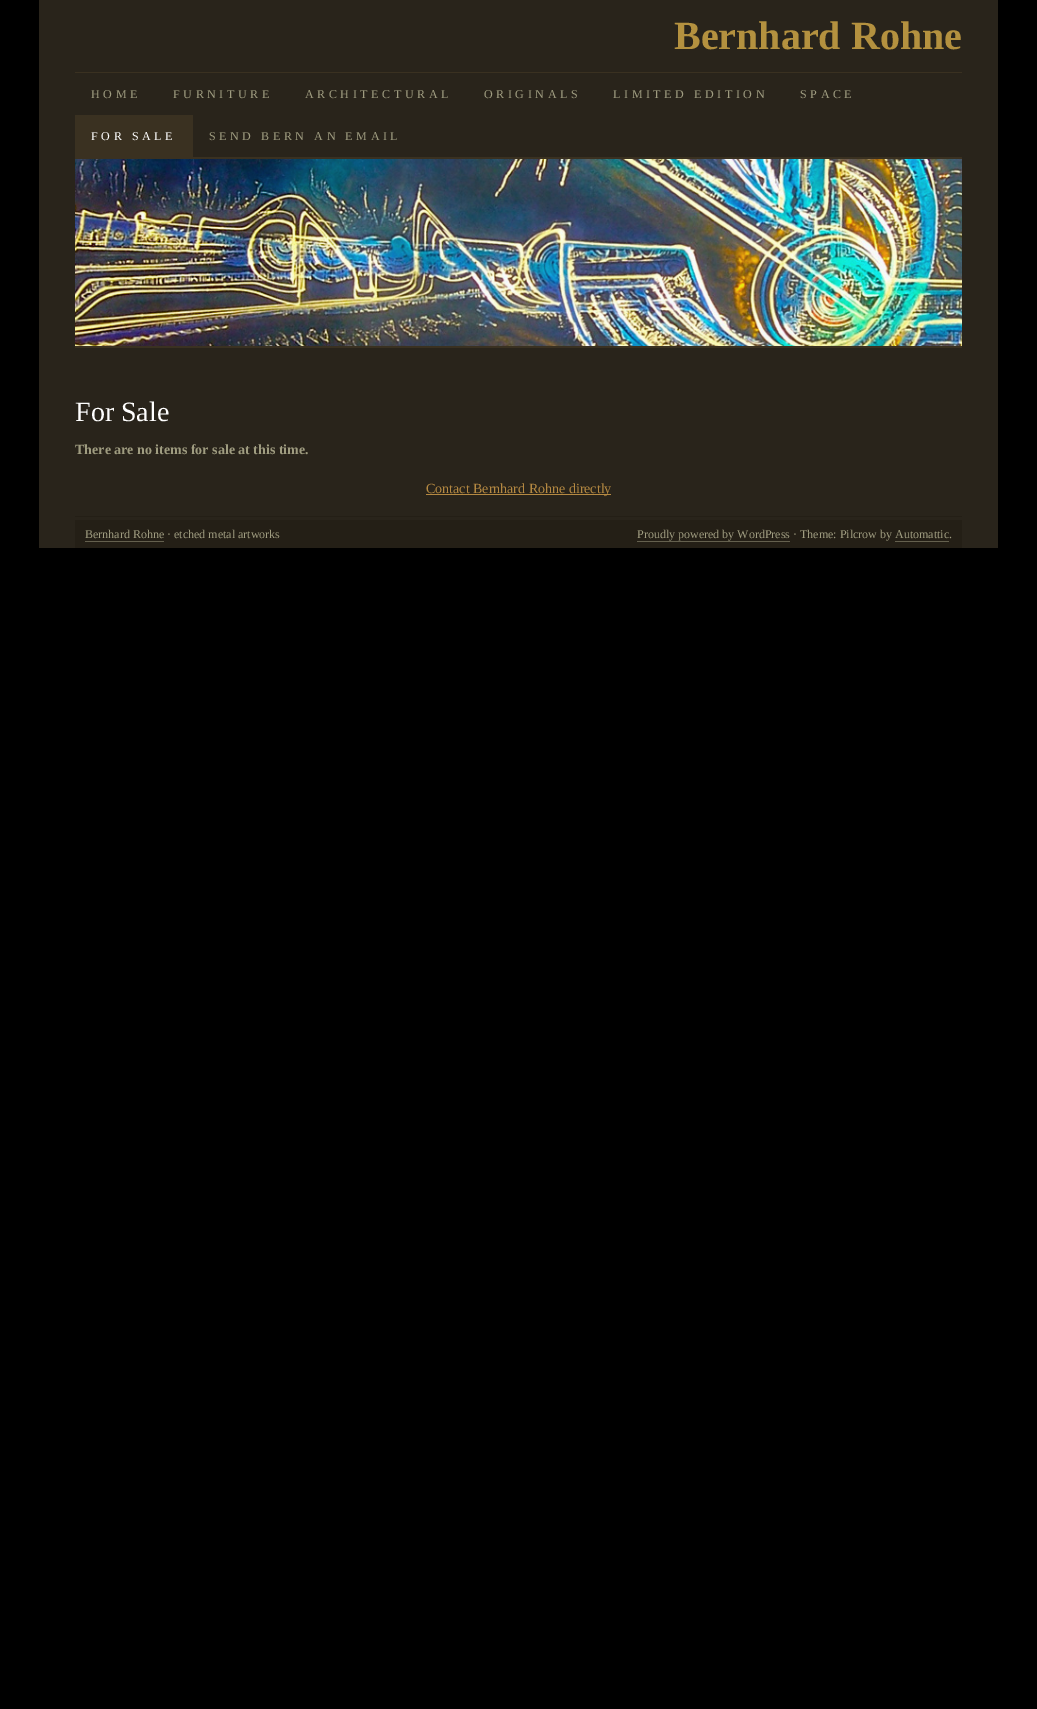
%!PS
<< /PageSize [1037 1709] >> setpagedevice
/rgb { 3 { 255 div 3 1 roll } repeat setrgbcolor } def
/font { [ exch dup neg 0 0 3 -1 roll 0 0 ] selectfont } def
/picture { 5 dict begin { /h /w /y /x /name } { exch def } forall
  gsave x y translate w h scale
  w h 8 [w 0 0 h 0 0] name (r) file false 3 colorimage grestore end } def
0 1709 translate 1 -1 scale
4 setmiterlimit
0 0 0 rgb
0 0 1037 1709 rectfill
[
  [39 0 959 548 41 36 27]
  [75 72 887 1 58 49 33]
  [75 157 887 2 58 49 33]
  [75 115 118 42 58 49 33]
] { aload pop rgb rectfill } forall
(img/1.rgb) 75 159 887 187 picture
[
  [75 346 887 2 58 49 33]
  [426 494 185 1 181 137 66]
  [75 516 887 1 36 31 22]
  [75 520 887 28 36 31 22]
  [85 541 79 1 100 96 78]
  [637 541 153 1 100 96 78]
  [895 541 54 1 100 96 78]
] { aload pop rgb rectfill } forall
/LiberationSerif-Bold 40 font
180 145 63 rgb
674 49 moveto (Bernhard Rohne) show
/LiberationSerif-Regular 12 font
159 156 128 rgb
91 98 moveto 3.6 0 (HOME) ashow
173 98 moveto 3.6 0 (FURNITURE) ashow
305 98 moveto 3.6 0 (ARCHITECTURAL) ashow
484 98 moveto 3.6 0 (ORIGINALS) ashow
613 98 moveto 3.6 0 (LIMITED EDITION) ashow
800 98 moveto 3.6 0 (SPACE) ashow
255 255 255 rgb
91 140 moveto 3.6 0 (FOR SALE) ashow
159 156 128 rgb
209 140 moveto 3.6 0 (SEND BERN AN EMAIL) ashow
/LiberationSerif-Regular 28 font
255 255 255 rgb
75 421 moveto (For Sale) show
/LiberationSerif-Bold 14 font
159 156 128 rgb
75 454 moveto (There are no items for sale at this time.) show
/LiberationSerif-Regular 14 font
181 137 66 rgb
426 493 moveto (Contact Bernhard Rohne directly) show
/LiberationSerif-Regular 12 font
159 156 128 rgb
85 538 moveto (Bernhard Rohne · etched metal artworks) show
637 538 moveto (Proudly powered by WordPress · Theme: Pilcrow by Automattic.) show
showpage
